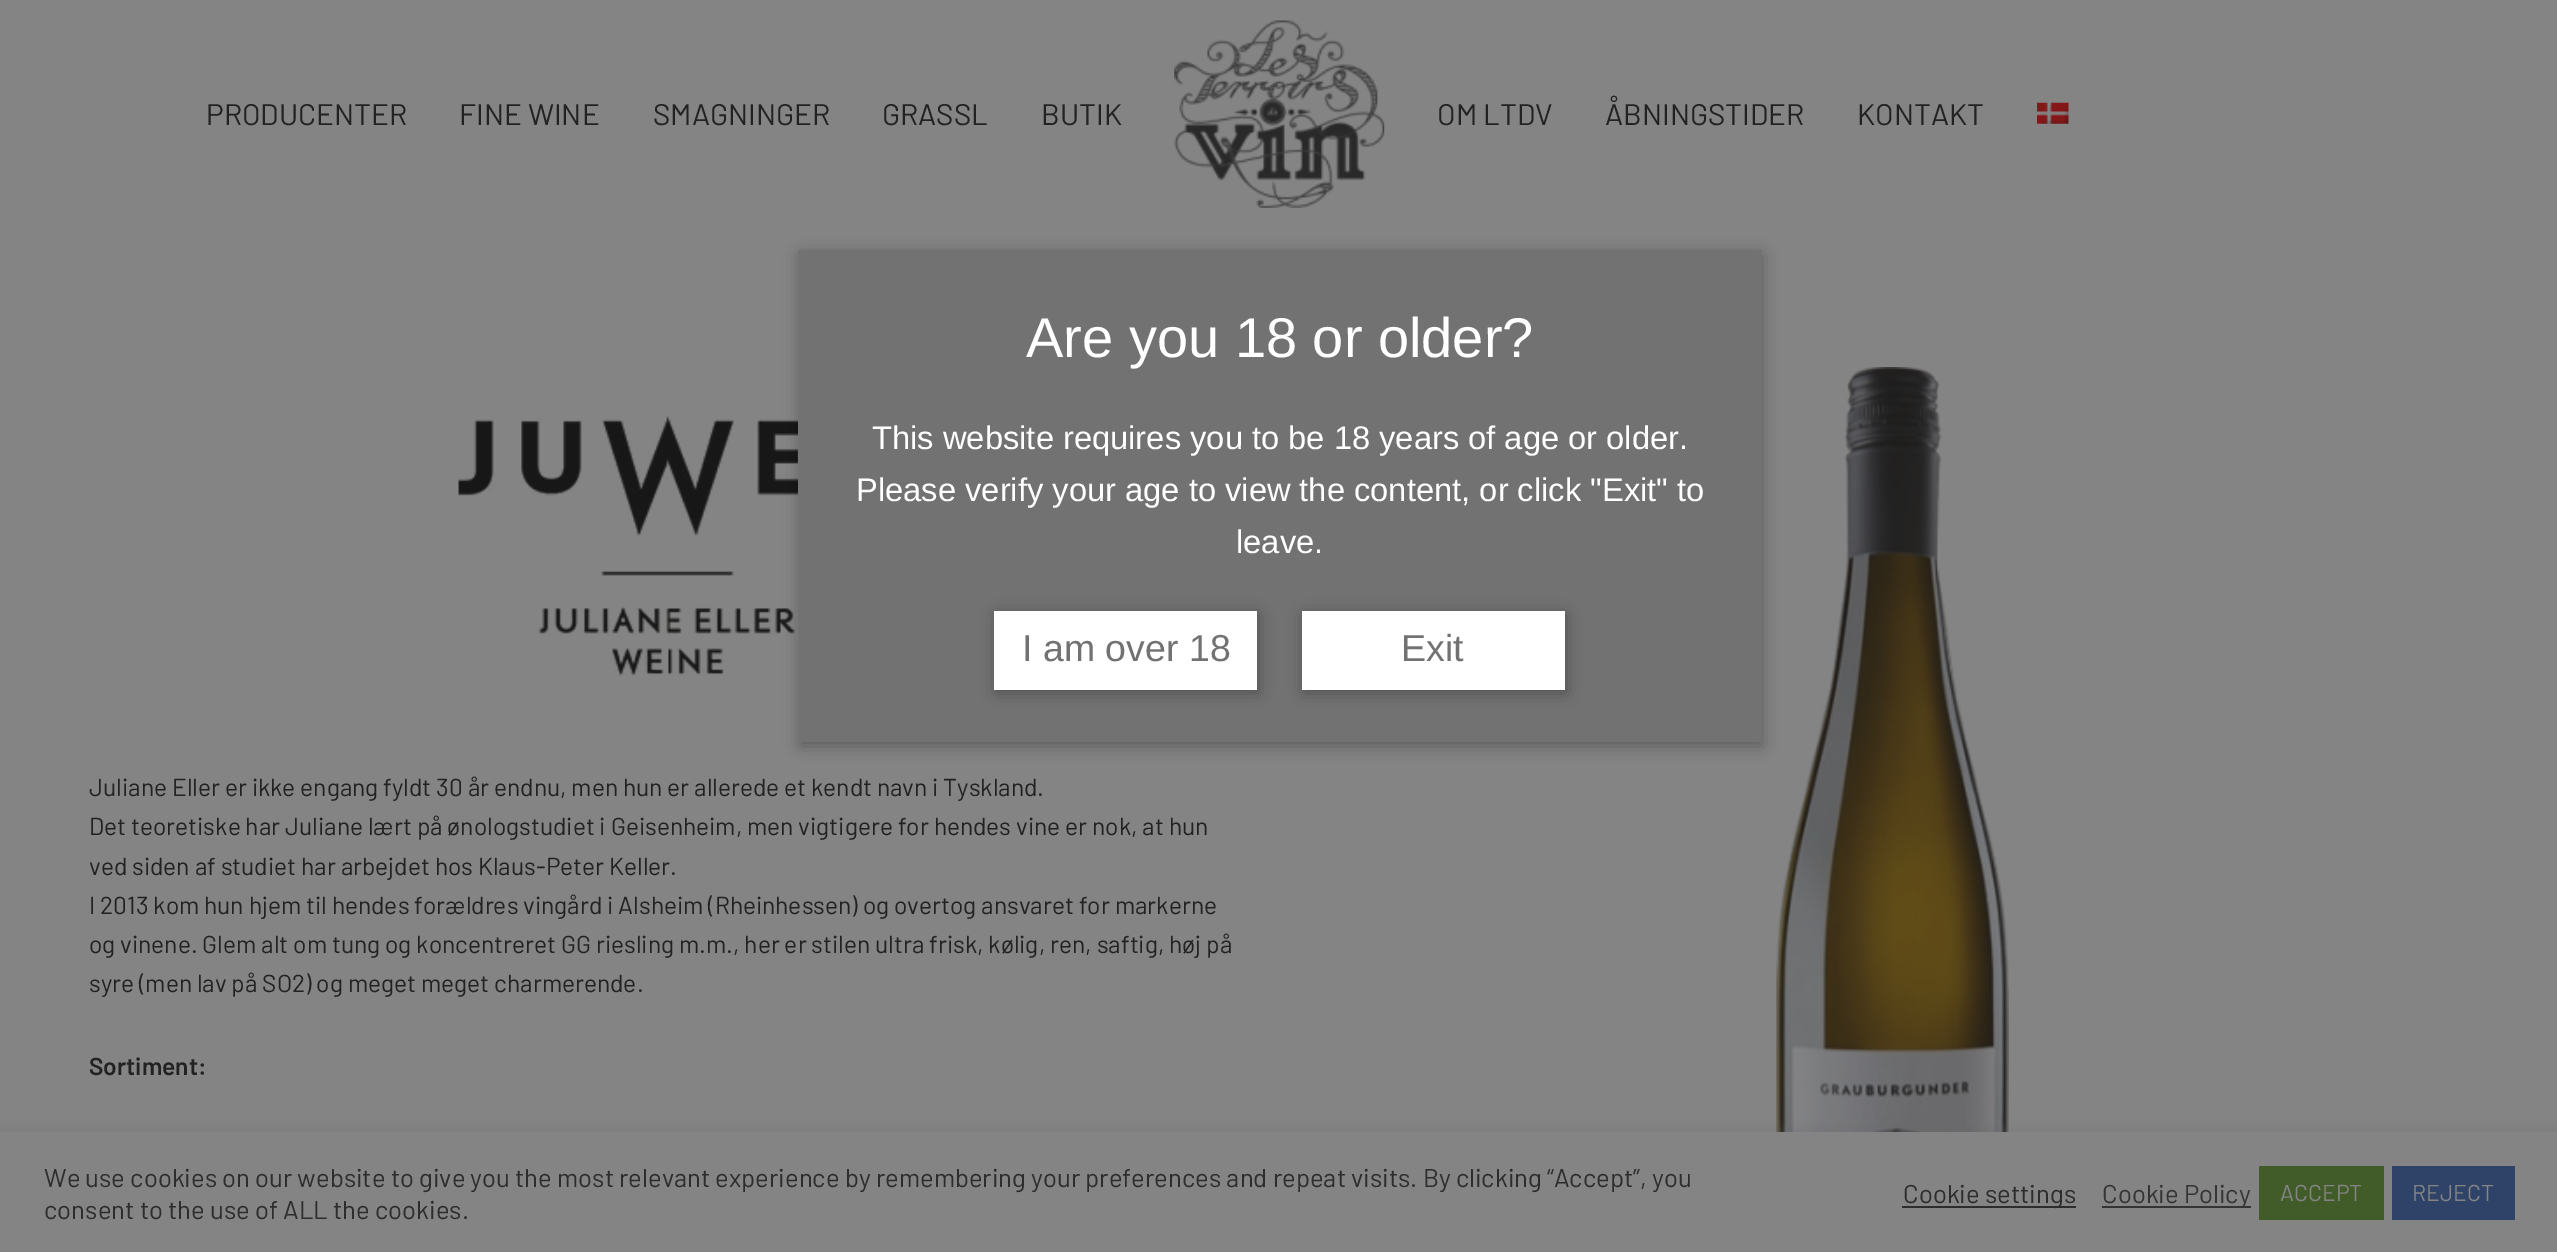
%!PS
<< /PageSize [2557 1252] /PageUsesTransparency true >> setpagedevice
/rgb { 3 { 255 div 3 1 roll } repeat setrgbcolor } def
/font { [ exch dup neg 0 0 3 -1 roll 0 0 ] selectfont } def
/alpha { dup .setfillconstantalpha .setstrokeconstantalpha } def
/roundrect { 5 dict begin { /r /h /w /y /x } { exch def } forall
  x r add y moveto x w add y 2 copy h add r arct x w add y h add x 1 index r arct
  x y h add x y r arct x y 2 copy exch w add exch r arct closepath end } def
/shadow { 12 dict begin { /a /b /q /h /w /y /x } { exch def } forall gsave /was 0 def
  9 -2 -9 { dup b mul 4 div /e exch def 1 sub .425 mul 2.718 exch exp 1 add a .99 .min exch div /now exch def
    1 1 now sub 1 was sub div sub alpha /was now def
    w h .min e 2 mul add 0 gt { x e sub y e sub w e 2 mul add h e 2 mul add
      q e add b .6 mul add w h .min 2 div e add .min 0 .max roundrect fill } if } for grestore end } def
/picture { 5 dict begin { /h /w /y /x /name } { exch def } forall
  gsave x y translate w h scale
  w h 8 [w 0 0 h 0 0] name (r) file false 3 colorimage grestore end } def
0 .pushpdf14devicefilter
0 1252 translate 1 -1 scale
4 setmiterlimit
132 132 132 rgb
0 0 2557 1252 rectfill
(img/1.rgb) 1174 20 211 188 picture
(img/2.rgb) 2037 102 32 22 picture
(img/3.rgb) 458 415 340 261 picture
(img/4.rgb) 1776 367 233 765 picture
0 0 0 rgb
800 254 962 492 0 8 0.3 shadow
114 114 114 rgb
798 250 963 492 rectfill
0 0 0 rgb
996 614 262 79 0 8 0.3 shadow
255 255 255 rgb
994 611 263 79 rectfill
0 0 0 rgb
1304 614 262 79 0 8 0.3 shadow
255 255 255 rgb
1302 611 263 79 rectfill
97 96 96 rgb
0 1131 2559 120 0 9 0.3 shadow
[
  [0 1132 2557 120 132 132 132]
  [1902 1206 174 2 45 45 45]
  [2102 1206 149 2 52 52 52]
  [2259 1166 125 54 65 92 40]
  [2392 1166 123 54 46 67 103]
] { aload pop rgb rectfill } forall
/Barlow-Regular 29.75 font
34 34 34 rgb
[
  [(PRODUCENTER) 206 125]
  [(FINE WINE) 459 125]
  [(SMAGNINGER) 653 125]
  [(GRASSL) 882 125]
  [(BUTIK) 1041 125]
  [(OM LTDV) 1437 125]
  [(ÅBNINGSTIDER) 1605 125]
  [(KONTAKT) 1857 125]
] { aload pop moveto show } forall
/Barlow-Regular 24.5 font
[
  [(Juliane Eller er ikke engang fyldt 30 år endnu, men hun er allerede et kendt navn i Tyskland.) 89 796]
  [(Det teoretiske har Juliane lært på ønologstudiet i Geisenheim, men vigtigere for hendes vine er nok, at hun) 89 835]
  [(ved siden af studiet har arbejdet hos Klaus-Peter Keller.) 89 875]
  [(I 2013 kom hun hjem til hendes forældres vingård i Alsheim \(Rheinhessen\) og overtog ansvaret for markerne) 89 914]
  [(og vinene. Glem alt om tung og koncentreret GG riesling m.m., her er stilen ultra frisk, kølig, ren, saftig, høj på) 89 953]
  [(syre \(men lav på SO2\) og meget meget charmerende.) 89 992]
] { aload pop moveto show } forall
/Barlow-SemiBold 24.5 font
89 1075 moveto (Sortiment:) show
/LiberationSans-Regular 56 font
255 255 255 rgb
1026 357 moveto (Are you 18 or older?) show
/LiberationSans-Regular 32.7 font
[
  [(This website requires you to be 18 years of age or older.) 872 449]
  [(Please verify your age to view the content, or click "Exit" to) 856 501]
  [(leave.) 1236 553]
] { aload pop moveto show } forall
/LiberationSans-Regular 37.5 font
114 114 114 rgb
1022 661 moveto (I am over 18) show
1401 661 moveto (Exit) show
/Barlow-Regular 25.67 font
45 45 45 rgb
[
  [(We use cookies on our website to give you the most relevant experience by remembering your preferences and repeat visits. By clicking “Accept”, you) 44 1187]
  [(consent to the use of ALL the cookies.) 44 1219]
  [(Cookie settings) 1903 1203]
] { aload pop moveto show } forall
52 52 52 rgb
2102 1203 moveto (Cookie Policy) show
/Barlow-Regular 23 font
132 132 132 rgb
2280 1201 moveto (ACCEPT) show
2412 1201 moveto (REJECT) show
.poppdf14devicefilter showpage
